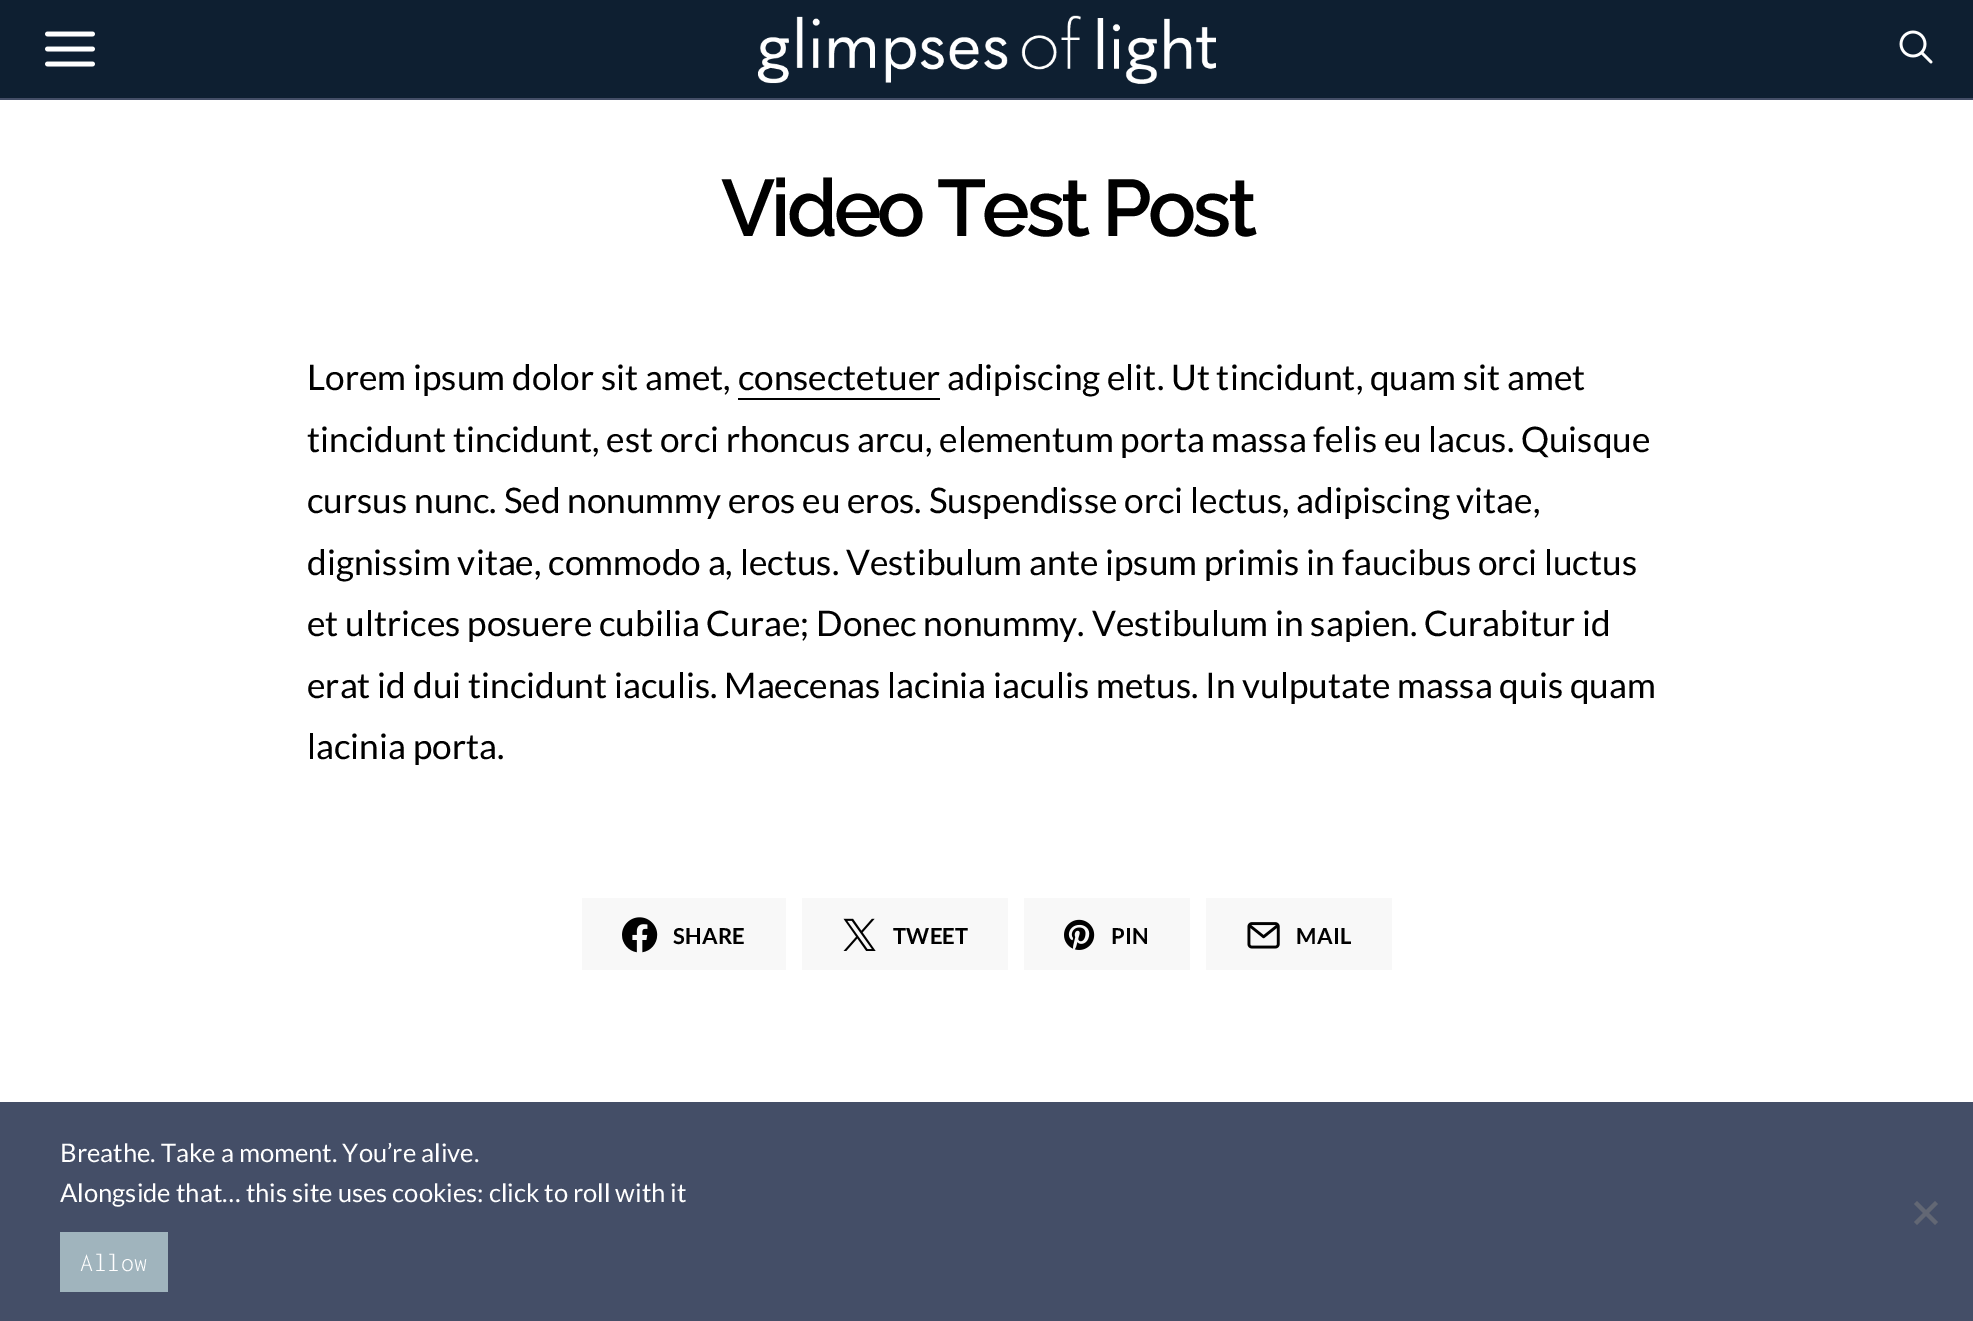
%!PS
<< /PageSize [1973 1321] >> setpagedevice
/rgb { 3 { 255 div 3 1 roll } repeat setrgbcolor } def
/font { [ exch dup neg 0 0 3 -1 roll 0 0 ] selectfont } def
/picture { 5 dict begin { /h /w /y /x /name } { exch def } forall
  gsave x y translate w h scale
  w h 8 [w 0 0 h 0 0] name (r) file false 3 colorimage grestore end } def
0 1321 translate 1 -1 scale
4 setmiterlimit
255 255 255 rgb
0 0 1973 1321 rectfill
14 31 49 rgb
0 0 1973 98 rectfill
68 78 103 rgb
0 98 1973 2 rectfill
(img/1.rgb) 45 31 50 36 picture
(img/2.rgb) 758 15 458 69 picture
(img/3.rgb) 1899 30 34 34 picture
0 0 0 rgb
738 398 202 2 rectfill
248 248 248 rgb
582 898 204 72 rectfill
(img/4.rgb) 622 917 36 36 picture
802 898 206 72 rectfill
(img/5.rgb) 843 918 33 33 picture
1024 898 166 72 rectfill
(img/6.rgb) 1064 919 31 31 picture
1206 898 186 72 rectfill
(img/7.rgb) 1247 922 33 27 picture
68 78 103 rgb
0 1102 1973 219 rectfill
98 103 116 rgb
1935 1201 moveto 1938 1204 lineto 1917 1225 lineto 1914 1222 lineto closepath fill
1914 1204 moveto 1917 1201 lineto 1938 1222 lineto 1935 1225 lineto closepath fill
160 180 189 rgb
60 1232 108 60 rectfill
/Raleway-SemiBold 80 font
0 0 0 rgb
721 236 moveto -4 0 (Video Test Post) ashow
/Lato-Regular 35.2 font
[
  [(Lorem ipsum dolor sit amet, consectetuer adipiscing elit. Ut tincidunt, quam sit amet) 307 390]
  [(tincidunt tincidunt, est orci rhoncus arcu, elementum porta massa felis eu lacus. Quisque) 307 452]
  [(cursus nunc. Sed nonummy eros eu eros. Suspendisse orci lectus, adipiscing vitae,) 307 513]
  [(dignissim vitae, commodo a, lectus. Vestibulum ante ipsum primis in faucibus orci luctus) 307 575]
  [(et ultrices posuere cubilia Curae; Donec nonummy. Vestibulum in sapien. Curabitur id) 307 636]
  [(erat id dui tincidunt iaculis. Maecenas lacinia iaculis metus. In vulputate massa quis quam) 307 698]
  [(lacinia porta.) 307 759]
] { aload pop moveto show } forall
/Lato-Bold 22 font
673 944 moveto 0.25 0 (SHARE) ashow
893 944 moveto 0.25 0 (TWEET) ashow
1111 944 moveto 0.25 0 (PIN) ashow
1296 944 moveto 0.25 0 (MAIL) ashow
/Lato-Regular 25.6 font
255 255 255 rgb
60 1162 moveto (Breathe. Take a moment. You’re alive.) show
60 1202 moveto (Alongside that… this site uses cookies: click to roll with it) show
/Inconsolata-Light 26 font
80 1271 moveto 0.5 0 (Allow) ashow
showpage
